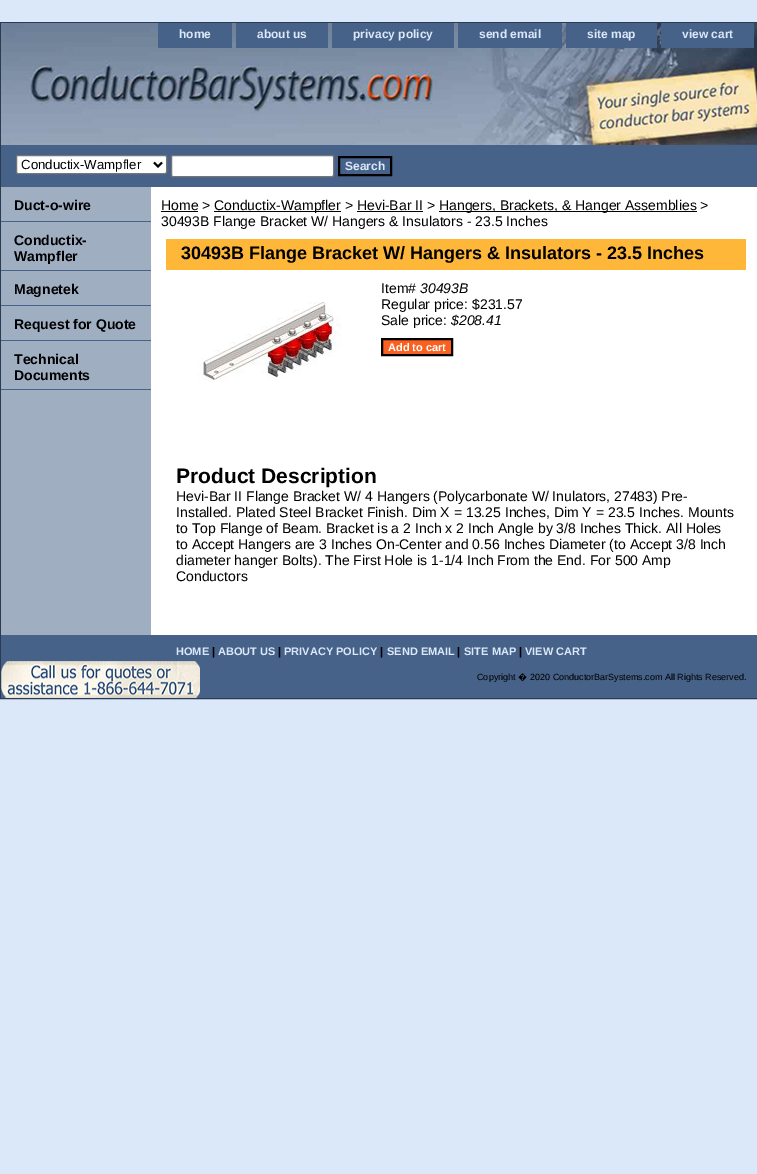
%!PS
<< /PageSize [757 1174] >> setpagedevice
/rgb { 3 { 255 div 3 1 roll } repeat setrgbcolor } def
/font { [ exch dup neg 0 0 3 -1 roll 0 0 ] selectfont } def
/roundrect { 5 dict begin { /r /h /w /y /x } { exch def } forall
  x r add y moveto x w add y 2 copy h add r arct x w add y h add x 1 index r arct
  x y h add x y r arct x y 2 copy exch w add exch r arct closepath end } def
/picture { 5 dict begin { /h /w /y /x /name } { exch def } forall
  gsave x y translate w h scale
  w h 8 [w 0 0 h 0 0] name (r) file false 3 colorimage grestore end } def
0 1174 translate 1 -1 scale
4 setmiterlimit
219 232 249 rgb
0 0 757 1174 rectfill
255 255 255 rgb
151 187 606 448 rectfill
42 59 82 rgb
0.5 22.5 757 676 rectstroke
(img/1.rgb) 1 23 756 122 picture
[
  [158 23 74 25 70 98 137]
  [236 23 92 25 70 98 137]
  [332 23 122 25 70 98 137]
  [458 23 104 25 70 98 137]
  [566 23 91 25 70 98 137]
  [661 23 93 25 70 98 137]
  [1 145 756 42 70 98 137]
] { aload pop rgb rectfill } forall
255 255 255 rgb
16.5 155.5 150 18 1.5 roundrect gsave fill grestore
118 118 118 rgb
stroke
0 0 0 rgb
2 setlinewidth
154 162.5 moveto 158 166.5 lineto 162 162.5 lineto stroke
255 255 255 rgb
171.5 155.5 162 21 1.5 roundrect gsave fill grestore
118 118 118 rgb
1 setlinewidth
stroke
0 0 0 rgb
2 setlinewidth
339 157 52 18 rectstroke
[
  [1 187 150 448 160 174 193]
  [1 221 150 1 70 98 137]
  [1 270 150 1 70 98 137]
  [1 305 150 1 70 98 137]
  [1 340 150 1 70 98 137]
  [1 389 150 1 70 98 137]
  [161 211 37 1 0 0 0]
  [214 211 127 1 0 0 0]
  [439 211 258 1 0 0 0]
  [357 211 66 1 0 0 0]
  [166 239 580 31 255 183 57]
] { aload pop rgb rectfill } forall
(img/2.rgb) 197 301 144 80 picture
250 97 33 rgb
382 339 moveto 452 339 lineto 452 355 lineto 382 355 lineto closepath gsave fill grestore
0 0 0 rgb
stroke
70 98 137 rgb
1 635 756 63 rectfill
(img/3.rgb) 1 661 199 37 picture
/LiberationSans-Bold 12 font
219 232 249 rgb
[
  [(home) 179 38]
  [(about us) 257 38]
  [(privacy policy) 353 38]
  [(send email) 479 38]
  [(site map) 587 38]
  [(view cart) 682 38]
] { aload pop moveto show } forall
/LiberationSans-Regular 13.25 font
0 0 0 rgb
21 169 moveto (Conductix-Wampfler) show
/LiberationSans-Bold 12 font
219 232 249 rgb
345 170 moveto (Search) show
/LiberationSans-Bold 14 font
0 0 0 rgb
[
  [(Duct-o-wire) 14 210]
  [(Conductix-) 14 245]
  [(Wampfler) 14 261]
  [(Magnetek) 14 294]
  [(Request for Quote) 14 329]
  [(Technical) 14 364]
  [(Documents) 14 380]
] { aload pop moveto show } forall
/LiberationSans-Regular 14 font
[
  [(Home >) 161 210]
  [(Conductix-Wampfler > Hevi-Bar II >) 214 210]
  [(Hangers, Brackets, & Hanger Assemblies >) 439 210]
  [(30493B Flange Bracket W/ Hangers & Insulators - 23.5 Inches) 161 226]
] { aload pop moveto show } forall
/LiberationSans-Bold 18 font
181 259 moveto (30493B Flange Bracket W/ Hangers & Insulators - 23.5 Inches) show
/LiberationSans-Regular 14 font
381 293 moveto (Item#) show
/LiberationSans-Italic 14 font
420 293 moveto (30493B) show
/LiberationSans-Regular 14 font
381 309 moveto (Regular price: $231.57) show
381 325 moveto (Sale price:) show
/LiberationSans-Italic 14 font
451 325 moveto ($208.41) show
/LiberationSans-Bold 11 font
255 255 255 rgb
388 351 moveto (Add to cart) show
/LiberationSans-Bold 21 font
0 0 0 rgb
176 483 moveto (Product Description) show
/LiberationSans-Regular 14 font
[
  [(Hevi-Bar II Flange Bracket W/ 4 Hangers \(Polycarbonate W/ Inulators, 27483\) Pre-) 176 501]
  [(Installed. Plated Steel Bracket Finish. Dim X = 13.25 Inches, Dim Y = 23.5 Inches. Mounts) 176 517]
  [(to Top Flange of Beam. Bracket is a 2 Inch x 2 Inch Angle by 3/8 Inches Thick. All Holes) 176 533]
  [(to Accept Hangers are 3 Inches On-Center and 0.56 Inches Diameter \(to Accept 3/8 Inch) 176 549]
  [(diameter hanger Bolts\). The First Hole is 1-1/4 Inch From the End. For 500 Amp) 176 565]
  [(Conductors) 176 581]
] { aload pop moveto show } forall
/LiberationSans-Bold 11 font
219 232 249 rgb
176 655 moveto (HOME) show
0 0 0 rgb
212 655 moveto (|) show
219 232 249 rgb
218 655 moveto (ABOUT US) show
0 0 0 rgb
278 655 moveto (|) show
219 232 249 rgb
284 655 moveto (PRIVACY POLICY) show
0 0 0 rgb
380 655 moveto (|) show
219 232 249 rgb
387 655 moveto (SEND EMAIL) show
0 0 0 rgb
457 655 moveto (|) show
219 232 249 rgb
464 655 moveto (SITE MAP) show
0 0 0 rgb
519 655 moveto (|) show
219 232 249 rgb
525 655 moveto (VIEW CART) show
/LiberationSans-Regular 9 font
0 0 0 rgb
477 680 moveto (Copyright) show
/NotoSans-Regular 9 font
518 680 moveto (�) show
/LiberationSans-Regular 9 font
530 680 moveto (2020 ConductorBarSystems.com All Rights Reserved.) show
showpage
